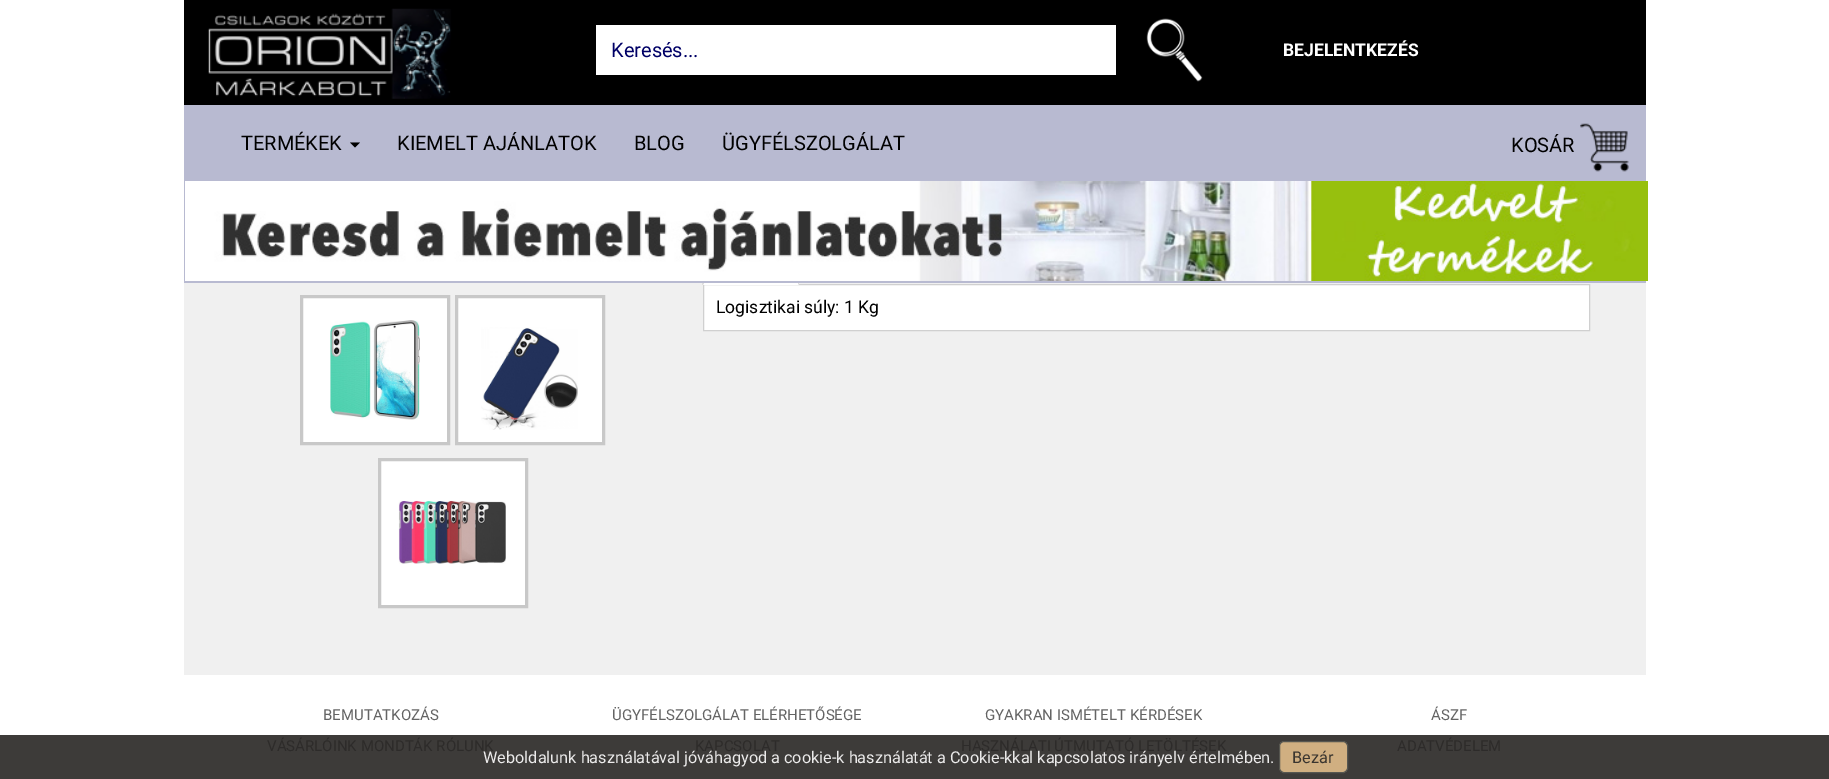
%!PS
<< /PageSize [1829 779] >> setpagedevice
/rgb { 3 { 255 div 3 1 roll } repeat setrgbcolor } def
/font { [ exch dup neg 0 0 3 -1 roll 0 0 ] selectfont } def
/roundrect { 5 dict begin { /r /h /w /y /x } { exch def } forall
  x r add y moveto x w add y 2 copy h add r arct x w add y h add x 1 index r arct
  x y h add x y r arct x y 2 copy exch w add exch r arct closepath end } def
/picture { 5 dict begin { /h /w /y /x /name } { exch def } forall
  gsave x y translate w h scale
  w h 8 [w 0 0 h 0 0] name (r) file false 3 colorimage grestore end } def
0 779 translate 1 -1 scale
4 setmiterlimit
255 255 255 rgb
0 0 1829 779 rectfill
61 59 57 rgb
0 735 1829 44 rectfill
0 0 0 rgb
184 0 1462 105 rectfill
(img/1.rgb) 208 8 244 91 picture
255 255 255 rgb
596 25 520 50 rectfill
(img/2.rgb) 1146 18 57 64 picture
240 240 240 rgb
184 283 1462 392 rectfill
255 255 255 rgb
703.5 284.5 moveto 1589.5 284.5 lineto 1589.5 330.5 lineto 703.5 330.5 lineto closepath gsave fill grestore
208 208 208 rgb
stroke
255 255 255 rgb
703 283 96 2 rectfill
221 221 221 rgb
799 232 moveto 799 285 lineto 798 284 lineto 798 234 lineto closepath fill
702 285 moveto 702 232 lineto 704 234 lineto 704 284 lineto closepath fill
184 186 209 rgb
184 105 1462 178 rectfill
0 0 0 rgb
350 142.5 moveto 360 142.5 lineto 355 147.5 lineto closepath fill
(img/3.rgb) 1580 123 49 49 picture
(img/4.rgb) 185 181 1463 100 picture
255 255 255 rgb
301.5 296.5 moveto 448.5 296.5 lineto 448.5 443.5 lineto 301.5 443.5 lineto closepath gsave fill grestore
200 200 200 rgb
3 setlinewidth
stroke
(img/5.rgb) 330 320 90 100 picture
255 255 255 rgb
456.5 296.5 moveto 603.5 296.5 lineto 603.5 443.5 lineto 456.5 443.5 lineto closepath gsave fill grestore
200 200 200 rgb
stroke
(img/6.rgb) 481 327 97 103 picture
255 255 255 rgb
379.5 459.5 moveto 526.5 459.5 lineto 526.5 606.5 lineto 379.5 606.5 lineto closepath gsave fill grestore
200 200 200 rgb
stroke
(img/7.rgb) 398 500 108 64 picture
208 175 129 rgb
1279.5 741.5 68 31 4.5 roundrect gsave fill grestore
86 86 80 rgb
1 setlinewidth
stroke
/Roboto-Regular 20 font
0 0 102 rgb
611 57 moveto (Keresés...) show
/Roboto-Bold 17.5 font
255 255 255 rgb
1283 56 moveto (BEJELENTKEZÉS) show
/Roboto-Regular 20 font
0 0 0 rgb
[
  [(TERMÉKEK) 241 150]
  [(KIEMELT AJÁNLATOK) 397 150]
  [(BLOG) 634 150]
  [(ÜGYFÉLSZOLGÁLAT) 722 150]
  [(KOSÁR) 1511 152]
] { aload pop moveto show } forall
/Roboto-Regular 17.5 font
716 313 moveto (Logisztikai súly: 1 Kg) show
/Roboto-Regular 15 font
100 100 100 rgb
323 720 moveto (BEMUTATKOZÁS) show
45 43 42 rgb
267 751 moveto (VÁSÁRLÓINK MONDTÁK RÓLUNK) show
100 100 100 rgb
612 720 moveto (ÜGYFÉLSZOLGÁLAT ELÉRHETŐSÉGE) show
45 43 42 rgb
695 751 moveto (KAPCSOLAT) show
100 100 100 rgb
985 720 moveto (GYAKRAN ISMÉTELT KÉRDÉSEK) show
45 43 42 rgb
961 751 moveto (HASZNÁLATI ÚTMUTATÓ LETÖLTÉSEK) show
100 100 100 rgb
1431 720 moveto (ÁSZF) show
45 43 42 rgb
1397 751 moveto (ADATVÉDELEM) show
/Roboto-Regular 16.25 font
236 235 235 rgb
483 763 moveto (Weboldalunk használatával jóváhagyod a cookie-k használatát a Cookie-kkal kapcsolatos irányelv értelmében.) show
58 53 47 rgb
1292 763 moveto (Bezár) show
showpage
